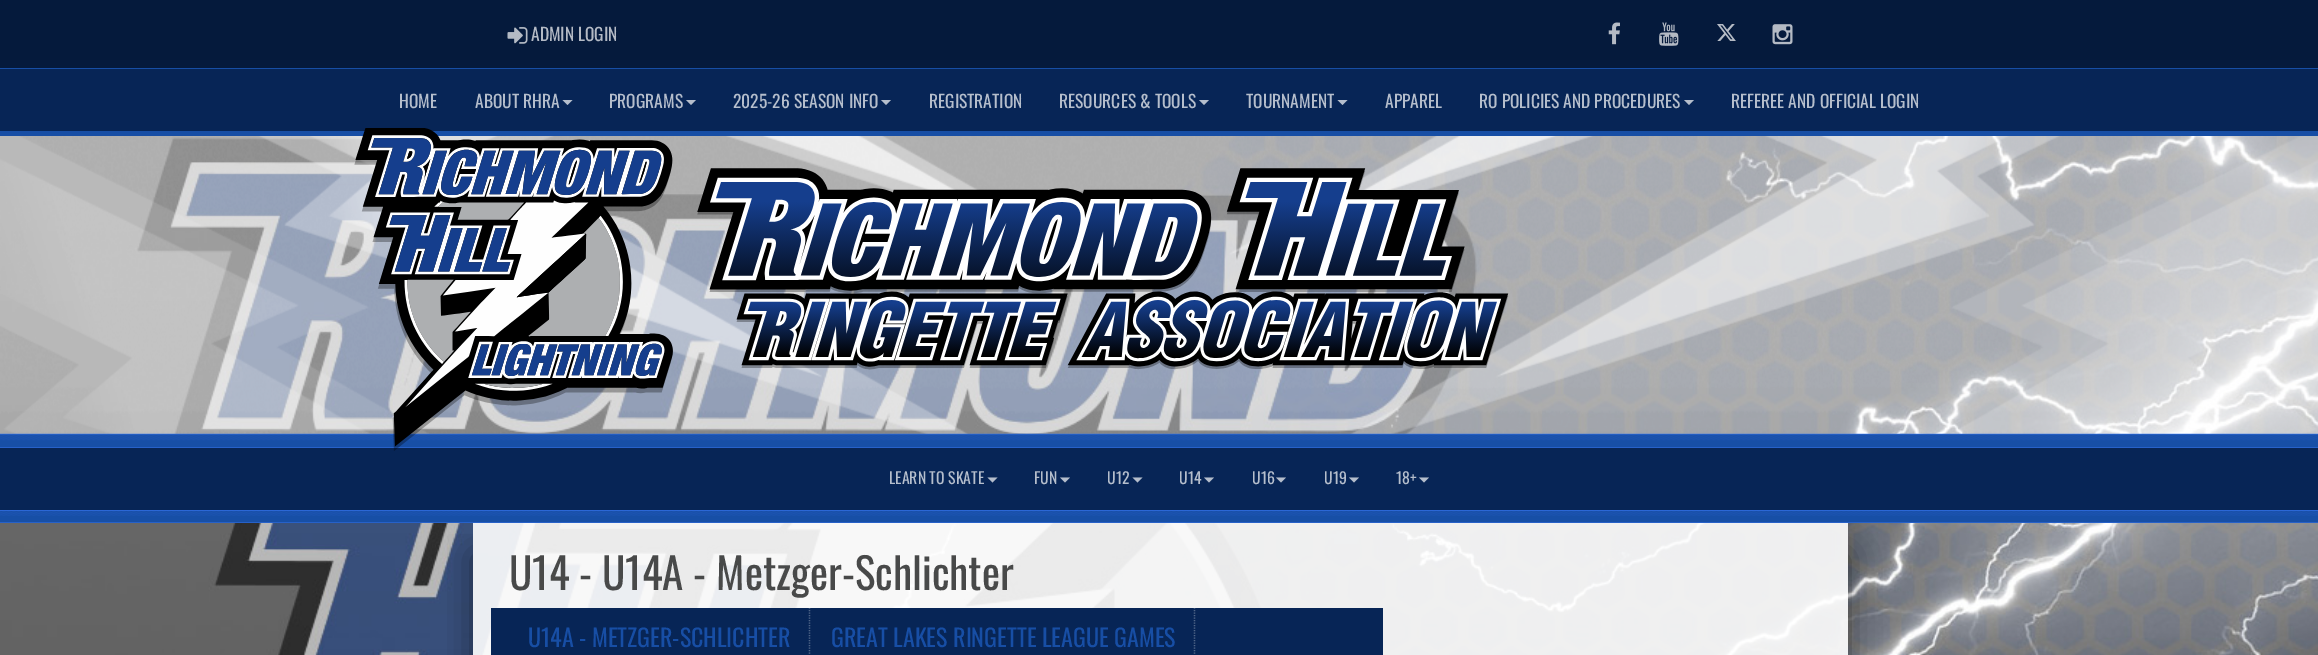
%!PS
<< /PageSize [2318 655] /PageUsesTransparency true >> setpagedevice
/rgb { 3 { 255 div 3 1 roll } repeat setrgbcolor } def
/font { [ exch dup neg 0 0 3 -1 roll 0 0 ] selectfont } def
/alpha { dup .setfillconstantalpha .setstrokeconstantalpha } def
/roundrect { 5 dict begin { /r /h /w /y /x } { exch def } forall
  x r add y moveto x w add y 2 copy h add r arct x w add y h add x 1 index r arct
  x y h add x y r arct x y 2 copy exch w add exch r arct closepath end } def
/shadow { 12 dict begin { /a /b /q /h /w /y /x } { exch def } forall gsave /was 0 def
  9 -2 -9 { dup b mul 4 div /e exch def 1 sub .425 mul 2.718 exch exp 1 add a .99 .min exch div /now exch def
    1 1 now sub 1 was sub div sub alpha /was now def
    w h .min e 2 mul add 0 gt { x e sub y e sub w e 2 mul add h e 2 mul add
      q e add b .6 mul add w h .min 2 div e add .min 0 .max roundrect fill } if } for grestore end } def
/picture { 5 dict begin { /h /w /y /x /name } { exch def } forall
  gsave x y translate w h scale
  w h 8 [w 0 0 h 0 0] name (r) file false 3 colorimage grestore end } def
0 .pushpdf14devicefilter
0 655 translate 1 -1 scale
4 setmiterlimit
255 255 255 rgb
0 0 2318 655 rectfill
23 78 165 rgb
0 68 2318 1 rectfill
5 26 60 rgb
0 0 2318 68 rectfill
(img/1.rgb) 507 27 21 17 picture
(img/2.rgb) 1608 22 12 23 picture
(img/3.rgb) 1659 22 20 24 picture
(img/4.rgb) 1717 24 19 17 picture
(img/5.rgb) 1772 24 21 21 picture
7 37 86 rgb
0 69 2318 62 rectfill
23 78 165 rgb
0 131 2318 5 rectfill
181 190 204 rgb
562.5 100 moveto 572.5 100 lineto 567.5 105 lineto closepath fill
686 100 moveto 696 100 lineto 691 105 lineto closepath fill
881 100 moveto 891 100 lineto 886 105 lineto closepath fill
1199 100 moveto 1209 100 lineto 1204 105 lineto closepath fill
1337.5 100 moveto 1347.5 100 lineto 1342.5 105 lineto closepath fill
1684 100 moveto 1694 100 lineto 1689 105 lineto closepath fill
(img/7.rgb) 0 136 2318 519 picture
(img/8.rgb) 0 136 2318 298 picture
23 78 165 rgb
0 434 2318 14 rectfill
(img/9.rgb) 0 433 2318 15 picture
gsave
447 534 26 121 rectclip
0 0 0 rgb
473 554 1312 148 0 15.5 0.45 shadow
grestore
gsave
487 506 moveto 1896 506 lineto 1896 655 lineto 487 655 lineto closepath 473 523 moveto 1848 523 lineto 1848 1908 lineto 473 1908 lineto closepath eoclip newpath
0 0 0 rgb
535 554 1313 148 0 15.5 0.45 shadow
grestore
7 37 86 rgb
0 448 2318 62 rectfill
(img/6.rgb) 354 128 1155 323 picture
181 190 204 rgb
987.5 477.5 moveto 997.5 477.5 lineto 992.5 482.5 lineto closepath fill
1060 477.5 moveto 1070 477.5 lineto 1065 482.5 lineto closepath fill
1132.5 477.5 moveto 1142.5 477.5 lineto 1137.5 482.5 lineto closepath fill
1204 477.5 moveto 1214 477.5 lineto 1209 482.5 lineto closepath fill
1276 477.5 moveto 1286 477.5 lineto 1281 482.5 lineto closepath fill
1349 477.5 moveto 1359 477.5 lineto 1354 482.5 lineto closepath fill
1419 477.5 moveto 1429 477.5 lineto 1424 482.5 lineto closepath fill
23 78 165 rgb
0 510 2318 13 rectfill
(img/10.rgb) 0 510 2318 13 picture
0.9 alpha
255 255 255 rgb
473 523 1375 132 rectfill
1 alpha
7 37 86 rgb
491 608 892 47 rectfill
0.3 alpha
255 255 255 rgb
1.2 setlinewidth
[1.25 1.25] 0 setdash
809.5 607.5 moveto 809.5 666 lineto stroke
1194.5 607.5 moveto 1194.5 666 lineto stroke
/Oswald-Regular 17.5 font
1 alpha
180 186 197 rgb
531 41 moveto (ADMIN LOGIN) show
181 190 204 rgb
[
  [(HOME) 399 108]
  [(ABOUT RHRA) 475 108]
  [(PROGRAMS) 609 108]
  [(2025-26 SEASON INFO) 733 108]
  [(REGISTRATION) 929 108]
  [(RESOURCES & TOOLS) 1059 108]
  [(TOURNAMENT) 1246 108]
  [(APPAREL) 1385 108]
  [(RO POLICIES AND PROCEDURES) 1479 108]
  [(REFEREE AND OFFICIAL LOGIN) 1731 108]
] { aload pop moveto show } forall
/Oswald-Regular 15.75 font
[
  [(LEARN TO SKATE) 889 484]
  [(FUN) 1034 484]
  [(U12) 1107 484]
  [(U14) 1179 484]
  [(U16) 1252 484]
  [(U19) 1324 484]
  [(18+) 1396 484]
] { aload pop moveto show } forall
/Oswald-Regular 43 font
72 73 73 rgb
[
  [(U14) 509 590]
  [(-) 579 590]
  [(U14A - Metzger-Schlichter) 602 590]
] { aload pop moveto show } forall
/Oswald-Regular 24 font
23 78 165 rgb
528 647 moveto (U14A - METZGER-SCHLICHTER) show
831 647 moveto (GREAT LAKES RINGETTE LEAGUE GAMES) show
.poppdf14devicefilter showpage
